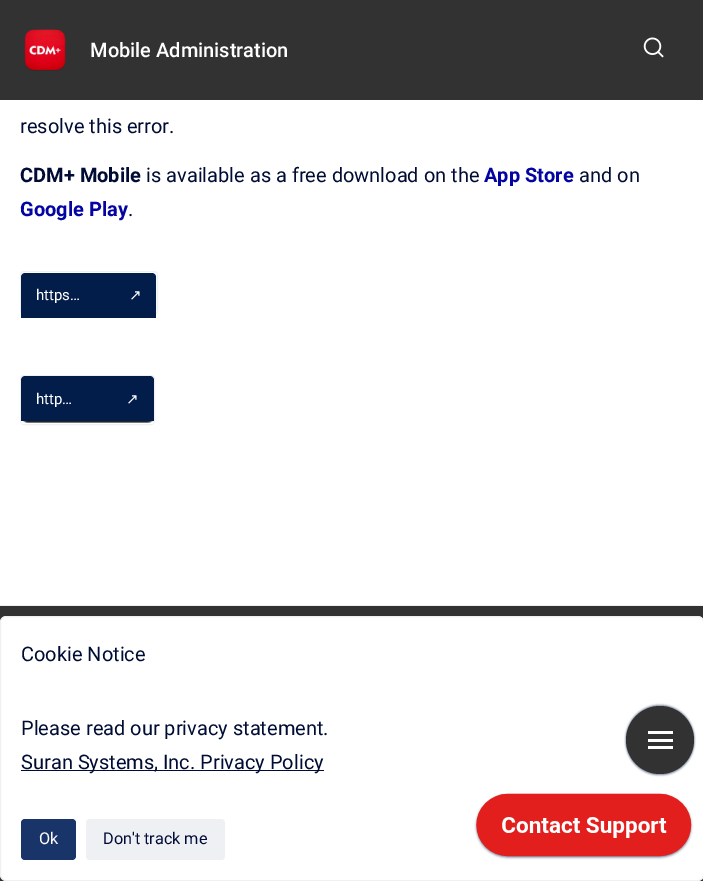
%!PS
<< /PageSize [703 881] /PageUsesTransparency true >> setpagedevice
/rgb { 3 { 255 div 3 1 roll } repeat setrgbcolor } def
/font { [ exch dup neg 0 0 3 -1 roll 0 0 ] selectfont } def
/alpha { dup .setfillconstantalpha .setstrokeconstantalpha } def
/circle { newpath 0 360 arc closepath } def
/roundrect { 5 dict begin { /r /h /w /y /x } { exch def } forall
  x r add y moveto x w add y 2 copy h add r arct x w add y h add x 1 index r arct
  x y h add x y r arct x y 2 copy exch w add exch r arct closepath end } def
/shadow { 12 dict begin { /a /b /q /h /w /y /x } { exch def } forall gsave /was 0 def
  9 -2 -9 { dup b mul 4 div /e exch def 1 sub .425 mul 2.718 exch exp 1 add a .99 .min exch div /now exch def
    1 1 now sub 1 was sub div sub alpha /was now def
    w h .min e 2 mul add 0 gt { x e sub y e sub w e 2 mul add h e 2 mul add
      q e add b .6 mul add w h .min 2 div e add .min 0 .max roundrect fill } if } for grestore end } def
/picture { 5 dict begin { /h /w /y /x /name } { exch def } forall
  gsave x y translate w h scale
  w h 8 [w 0 0 h 0 0] name (r) file false 3 colorimage grestore end } def
0 .pushpdf14devicefilter
0 881 translate 1 -1 scale
4 setmiterlimit
255 255 255 rgb
0 0 703 881 rectfill
50 50 50 rgb
0 0 703 100 rectfill
(img/1.rgb) 24 29 42 42 picture
(img/2.rgb) 643 37 21 21 picture
239 240 244 rgb
20.5 271.5 137 43 3.5 roundrect stroke
(img/3.rgb) 21 273 136 38 picture
2 29 74 rgb
25 273 moveto 98 273 lineto 98 318 lineto 21 318 lineto 21 277 lineto 21 275 23 273 25 273 curveto closepath fill
98 273 moveto 152 273 lineto 154 273 156 275 156 277 curveto 156 318 lineto 98 318 lineto closepath fill
239 240 244 rgb
20.5 375.5 134 49 3.5 roundrect stroke
(img/4.rgb) 21 377 133 47 picture
2 29 74 rgb
25 376 moveto 95 376 lineto 95 421 lineto 21 421 lineto 21 380 lineto 21 378 23 376 25 376 curveto closepath fill
95 376 moveto 150 376 lineto 152 376 154 378 154 380 curveto 154 421 lineto 95 421 lineto closepath fill
50 50 50 rgb
0 606 703 275 rectfill
239 240 244 rgb
0 605 703 1 rectfill
255 255 255 rgb
0.5 616.5 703 264 5.5 roundrect gsave fill grestore
239 240 244 rgb
stroke
0 12 52 rgb
21 770 303 1 rectfill
25 52 104 rgb
21 819 55 41 4 roundrect fill
239 240 244 rgb
86 819 139 41 4 roundrect fill
122 134 154 rgb
626 705 68 68 34 1 1 shadow
626 708 68 67 33.5 1 1 shadow
50 50 50 rgb
660 740 34 circle fill
[
  [648 731 25 3 255 255 255]
  [648 739 25 3 255 255 255]
  [648 746 25 3 255 255 255]
] { aload pop rgb rectfill } forall
(img/5.rgb) 474 793 220 67 picture
/Roboto-Medium 20 font
90 57 moveto (Mobile Administration) show
/Roboto-Regular 20 font
0 12 52 rgb
20 133 moveto (resolve this error.) show
/Roboto-Bold 20 font
20 182 moveto (CDM+ Mobile) show
/Roboto-Regular 20 font
146 182 moveto (is available as a free download on the) show
/Roboto-Bold 20 font
4 4 163 rgb
484 182 moveto (App Store) show
/Roboto-Regular 20 font
0 12 52 rgb
579 182 moveto (and on) show
/Roboto-Bold 20 font
4 4 163 rgb
20 216 moveto (Google Play) show
/Roboto-Regular 20 font
0 12 52 rgb
128 216 moveto (.) show
/Roboto-Regular 15 font
255 255 255 rgb
36 300 moveto (https…) show
/DejaVuSans-Regular 15 font
129 300 moveto (↗) show
/Roboto-Regular 15 font
36 404 moveto (http…) show
/DejaVuSans-Regular 15 font
126 404 moveto (↗) show
/Roboto-Regular 20 font
0 12 52 rgb
[
  [(Cookie Notice) 21 661]
  [(Please read our privacy statement.) 21 735]
  [(Suran Systems, Inc. Privacy Policy) 21 769]
] { aload pop moveto show } forall
/Roboto-Regular 16.25 font
255 255 255 rgb
39 844 moveto (Ok) show
0 12 52 rgb
103 844 moveto (Don't track me) show
.poppdf14devicefilter showpage
